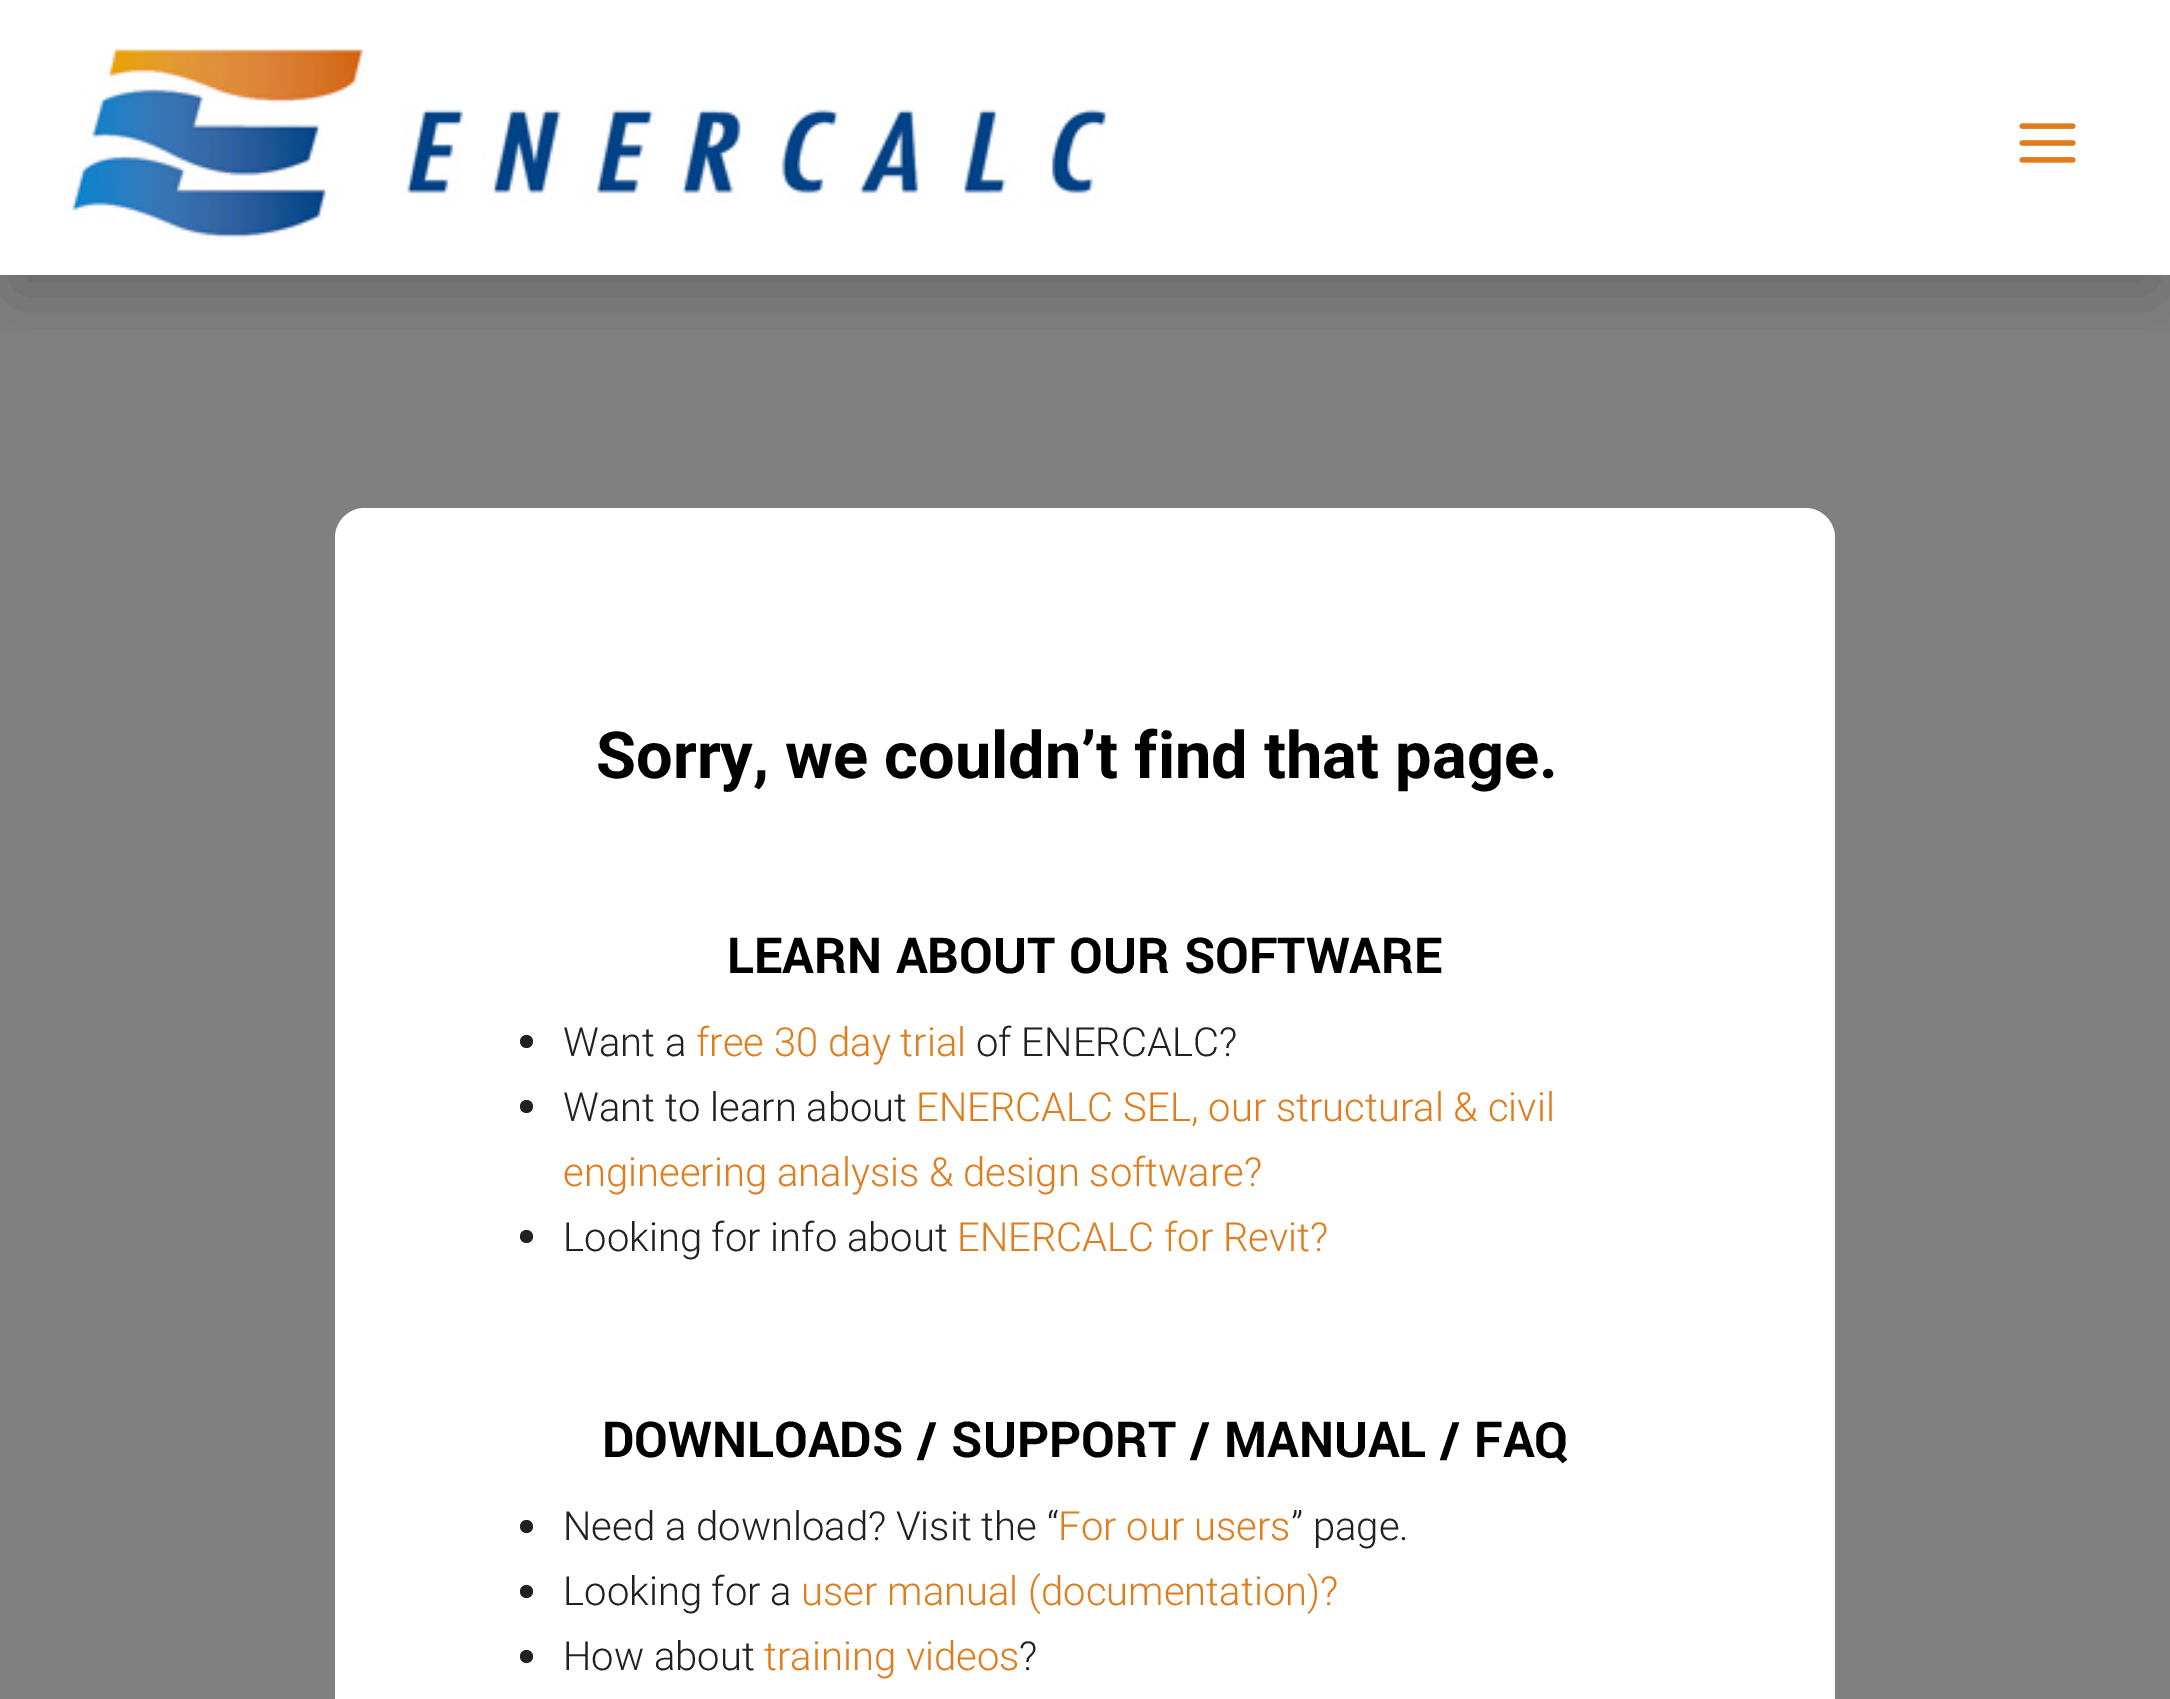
%!PS
<< /PageSize [2170 1699] /PageUsesTransparency true >> setpagedevice
/rgb { 3 { 255 div 3 1 roll } repeat setrgbcolor } def
/font { [ exch dup neg 0 0 3 -1 roll 0 0 ] selectfont } def
/alpha { dup .setfillconstantalpha .setstrokeconstantalpha } def
/circle { newpath 0 360 arc closepath } def
/roundrect { 5 dict begin { /r /h /w /y /x } { exch def } forall
  x r add y moveto x w add y 2 copy h add r arct x w add y h add x 1 index r arct
  x y h add x y r arct x y 2 copy exch w add exch r arct closepath end } def
/shadow { 12 dict begin { /a /b /q /h /w /y /x } { exch def } forall gsave /was 0 def
  9 -2 -9 { dup b mul 4 div /e exch def 1 sub .425 mul 2.718 exch exp 1 add a .99 .min exch div /now exch def
    1 1 now sub 1 was sub div sub alpha /was now def
    w h .min e 2 mul add 0 gt { x e sub y e sub w e 2 mul add h e 2 mul add
      q e add b .6 mul add w h .min 2 div e add .min 0 .max roundrect fill } if } for grestore end } def
/picture { 5 dict begin { /h /w /y /x /name } { exch def } forall
  gsave x y translate w h scale
  w h 8 [w 0 0 h 0 0] name (r) file false 3 colorimage grestore end } def
0 .pushpdf14devicefilter
0 1699 translate 1 -1 scale
4 setmiterlimit
255 255 255 rgb
0 0 2170 1699 rectfill
128 128 128 rgb
0 275 2170 1424 rectfill
gsave
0 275 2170 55 rectclip
0 0 0 rgb
15 45 2140 245 0 31 0.2 shadow
grestore
(img/1.rgb) 68 49 1044 190 picture
(img/2.rgb) 2019 123 57 40 picture
255 255 255 rgb
335 508 1500 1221 30 roundrect fill
33 33 33 rgb
526.5 1041.5 6.5 circle fill
526.5 1106.5 6.5 circle fill
526.5 1236.5 6.5 circle fill
526.5 1526.5 6.5 circle fill
526.5 1591.5 6.5 circle fill
526.5 1656.5 6.5 circle fill
/Roboto-Bold 65 font
0 0 0 rgb
596 778 moveto (Sorry, we couldn’t find that page.) show
/Yantramanav-Bold 55 font
727 973 moveto (LEARN ABOUT OUR SOFTWARE) show
/Roboto-Light 40 font
33 33 33 rgb
563 1056 moveto (Want a) show
224 124 28 rgb
696 1056 moveto (free 30 day trial) show
33 33 33 rgb
976 1056 moveto (of ENERCALC?) show
563 1121 moveto (Want to learn about) show
224 124 28 rgb
916 1121 moveto (ENERCALC SEL, our structural & civil) show
563 1186 moveto (engineering analysis & design software?) show
33 33 33 rgb
563 1251 moveto (Looking for info about) show
224 124 28 rgb
957 1251 moveto (ENERCALC for Revit?) show
/Yantramanav-Bold 55 font
0 0 0 rgb
602 1457 moveto (DOWNLOADS / SUPPORT / MANUAL / FAQ) show
/Roboto-Light 40 font
33 33 33 rgb
563 1540 moveto (Need a download? Visit the “) show
224 124 28 rgb
1058 1540 moveto (For our users) show
33 33 33 rgb
1291 1540 moveto (” page.) show
563 1605 moveto (Looking for a) show
224 124 28 rgb
801 1605 moveto (user manual \(documentation\)?) show
33 33 33 rgb
563 1670 moveto (How about) show
224 124 28 rgb
764 1670 moveto (training videos) show
33 33 33 rgb
1019 1670 moveto (?) show
.poppdf14devicefilter showpage
